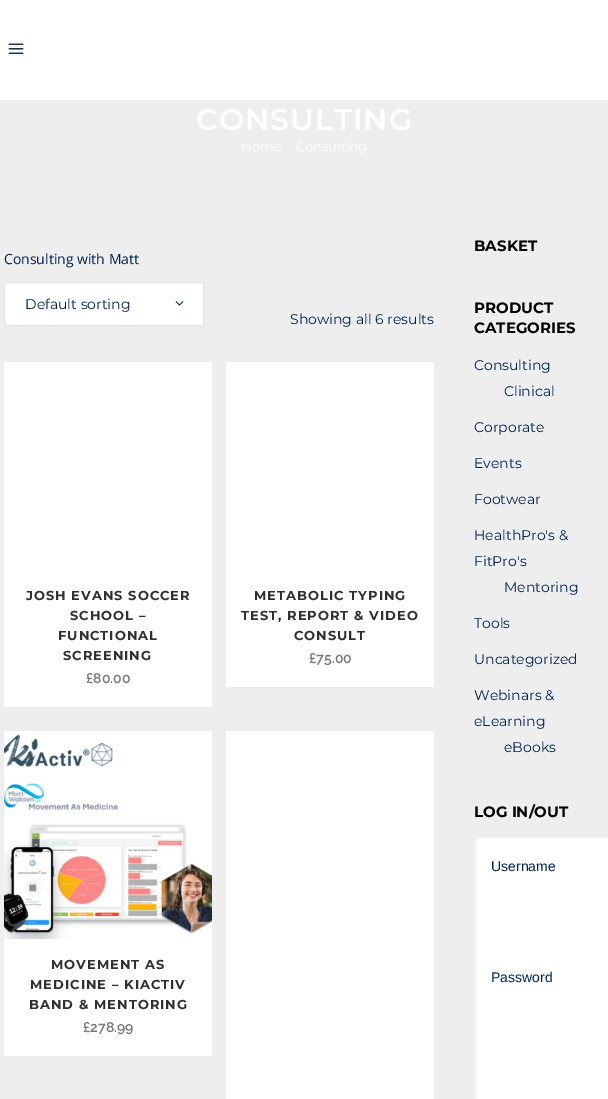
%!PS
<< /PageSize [608 1099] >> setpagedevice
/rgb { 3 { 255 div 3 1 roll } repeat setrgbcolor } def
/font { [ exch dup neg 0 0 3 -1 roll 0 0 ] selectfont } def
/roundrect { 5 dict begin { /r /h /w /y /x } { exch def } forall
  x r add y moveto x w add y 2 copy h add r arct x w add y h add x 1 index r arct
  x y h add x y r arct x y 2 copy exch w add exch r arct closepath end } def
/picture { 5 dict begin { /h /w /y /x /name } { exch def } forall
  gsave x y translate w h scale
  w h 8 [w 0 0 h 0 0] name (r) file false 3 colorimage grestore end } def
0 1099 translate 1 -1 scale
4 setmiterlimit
238 238 238 rgb
0 0 608 1099 rectfill
255 255 255 rgb
0 0 608 100 rectfill
(img/1.rgb) 8 43 16 11 picture
4.5 282.5 moveto 203.5 282.5 lineto 203.5 325.5 lineto 4.5 325.5 lineto closepath gsave fill grestore
230 230 230 rgb
stroke
(img/2.rgb) 175 301 9 5 picture
[
  [4 362 208 345 255 255 255]
  [226 362 208 325 255 255 255]
  [4 731 208 325 255 255 255]
] { aload pop rgb rectfill } forall
(img/3.rgb) 4 734 208 205 picture
226 731 208 368 rectfill
479 836 moveto 608 836 lineto 608 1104 lineto 479 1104 lineto 476 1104 474 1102 474 1099 curveto 474 841 lineto 474 838 476 836 479 836 curveto closepath fill
241 241 241 rgb
2 setlinewidth
475 837 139 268 4 roundrect stroke
/Montserrat-SemiBold 30 font
255 255 255 rgb
196 130 moveto 1 0 (CONSULTING) ashow
/Montserrat-Regular 13 font
241 151 moveto (Home) show
296 151 moveto (Consulting) show
/OpenSans-Regular 14 font
0 35 80 rgb
4 264 moveto (Consulting with Matt) show
/Montserrat-Regular 14 font
25 309 moveto (Default sorting) show
290 324 moveto (Showing all 6 results) show
/Montserrat-Bold 13 font
48 48 48 rgb
26 600 moveto 1 0 (JOSH EVANS SOCCER) ashow
70 620 moveto 1 0 (SCHOOL –) ashow
58 640 moveto 1 0 (FUNCTIONAL) ashow
63 660 moveto 1 0 (SCREENING) ashow
/Raleway-SemiBold 14 font
119 119 119 rgb
86 683 moveto (£80.00) show
/Montserrat-Bold 13 font
48 48 48 rgb
254 600 moveto 1 0 (METABOLIC TYPING) ashow
241 620 moveto 1 0 (TEST, REPORT & VIDEO) ashow
294 640 moveto 1 0 (CONSULT) ashow
/Raleway-SemiBold 14 font
119 119 119 rgb
309 663 moveto (£75.00) show
/Montserrat-Bold 13 font
48 48 48 rgb
51 969 moveto 1 0 (MOVEMENT AS) ashow
30 989 moveto 1 0 (MEDICINE – KIACTIV) ashow
29 1009 moveto 1 0 (BAND & MENTORING) ashow
/Raleway-SemiBold 14 font
119 119 119 rgb
83 1032 moveto (£278.99) show
/Montserrat-Bold 15 font
0 0 0 rgb
[
  [(BASKET) 474 251]
  [(PRODUCT) 474 313]
  [(CATEGORIES) 474 333]
] { aload pop moveto show } forall
/Montserrat-Regular 14 font
0 35 80 rgb
[
  [(Consulting) 474 370]
  [(Clinical) 504 396]
  [(Corporate) 474 432]
  [(Events) 474 468]
  [(Footwear) 474 504]
  [(HealthPro's &) 474 540]
  [(FitPro's) 474 566]
  [(Mentoring) 504 592]
  [(Tools) 474 628]
  [(Uncategorized) 474 664]
  [(Webinars &) 474 700]
  [(eLearning) 474 726]
  [(eBooks) 504 752]
] { aload pop moveto show } forall
/Montserrat-Bold 15 font
0 0 0 rgb
474 817 moveto (LOG IN/OUT) show
/LiberationSans-Regular 14 font
0 35 80 rgb
491 871 moveto (Username) show
491 982 moveto (Password) show
showpage
